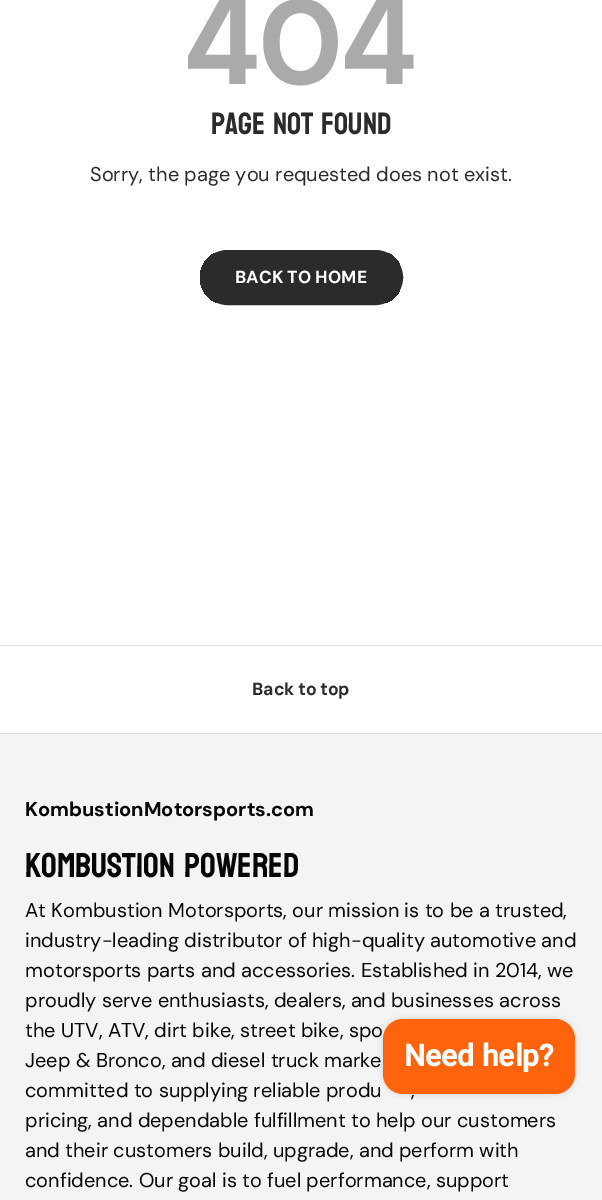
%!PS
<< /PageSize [602 1200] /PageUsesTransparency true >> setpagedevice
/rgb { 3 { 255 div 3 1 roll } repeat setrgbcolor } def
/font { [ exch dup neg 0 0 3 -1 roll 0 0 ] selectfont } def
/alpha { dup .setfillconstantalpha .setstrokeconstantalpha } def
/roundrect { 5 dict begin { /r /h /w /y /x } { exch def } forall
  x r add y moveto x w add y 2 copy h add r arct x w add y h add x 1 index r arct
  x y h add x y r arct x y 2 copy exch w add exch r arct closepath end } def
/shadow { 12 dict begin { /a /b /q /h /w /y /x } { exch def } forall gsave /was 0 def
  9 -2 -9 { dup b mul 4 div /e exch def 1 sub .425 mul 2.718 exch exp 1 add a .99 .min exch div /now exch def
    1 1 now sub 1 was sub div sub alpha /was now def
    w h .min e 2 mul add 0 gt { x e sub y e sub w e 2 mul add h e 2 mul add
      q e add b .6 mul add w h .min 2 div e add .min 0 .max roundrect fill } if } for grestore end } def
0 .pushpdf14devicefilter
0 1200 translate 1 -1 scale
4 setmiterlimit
255 255 255 rgb
0 0 602 1200 rectfill
gsave
200 250 203 55 27.5 roundrect clip newpath
gsave 200 253 moveto 400 253 lineto 400 303 lineto 200 303 lineto closepath clip newpath
<< /ShadingType 2 /ColorSpace /DeviceRGB /Coords [-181 206 389 349] /Extend [true true] /Function << /FunctionType 3 /Domain [0 1] /Functions [<< /FunctionType 2 /Domain [0 1] /C0 [0.322 0.325 0.322] /C1 [0.322 0.325 0.322] /N 1 >> << /FunctionType 2 /Domain [0 1] /C0 [0.165 0.169 0.165] /C1 [0.165 0.169 0.165] /N 1 >>] /Bounds [0.6] /Encode [0 1 0 1] >> >> shfill grestore
grestore
42 43 42 rgb
3 setlinewidth
201.5 251.5 200 52 26 roundrect stroke
[
  [0 645 602 1 223 223 223]
  [0 733 602 1 223 223 223]
  [0 734 602 466 244 244 244]
] { aload pop rgb rectfill } forall
0 0 0 rgb
383 1019 192 75 20 3 0.15 shadow
255 100 13 rgb
383 1019 192 75 20 roundrect fill
/DMSans-Bold 120 font
170 170 170 rgb
185 84 moveto (404) show
/Bayon-Regular 30.75 font
42 43 42 rgb
211 134 moveto (PAGE NOT FOUND) show
/DMSans-Regular 20 font
90 181 moveto (Sorry, the page you requested does not exist.) show
/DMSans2-Bold 17.5 font
255 255 255 rgb
235 283 moveto (BACK TO HOME) show
42 43 42 rgb
252 695 moveto -1 0 32 (Back to top) widthshow
/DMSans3-Bold 20 font
7 7 7 rgb
25 816 moveto (KombustionMotorsports.com) show
/Bayon-Regular 34.5 font
25 877 moveto (KOMBUSTION POWERED) show
/DMSans-Regular 20 font
[
  [(At Kombustion Motorsports, our mission is to be a trusted,) 25 917]
  [(industry-leading distributor of high-quality automotive and) 25 947]
  [(motorsports parts and accessories. Established in 2014, we) 25 977]
  [(proudly serve enthusiasts, dealers, and businesses across) 25 1007]
  [(the UTV, ATV, dirt bike, street bike, spo) 25 1037]
  [(Jeep & Bronco, and diesel truck marke) 25 1067]
  [(committed to supplying reliable produ) 25 1097]
  [(,) 411 1097]
  [(pricing, and dependable fulfillment to help our customers) 25 1127]
  [(and their customers build, upgrade, and perform with) 25 1157]
  [(confidence. Our goal is to fuel performance, support) 25 1187]
] { aload pop moveto show } forall
/Roboto-Bold 30 font
255 255 255 rgb
404 1066 moveto (Need help?) show
.poppdf14devicefilter showpage
